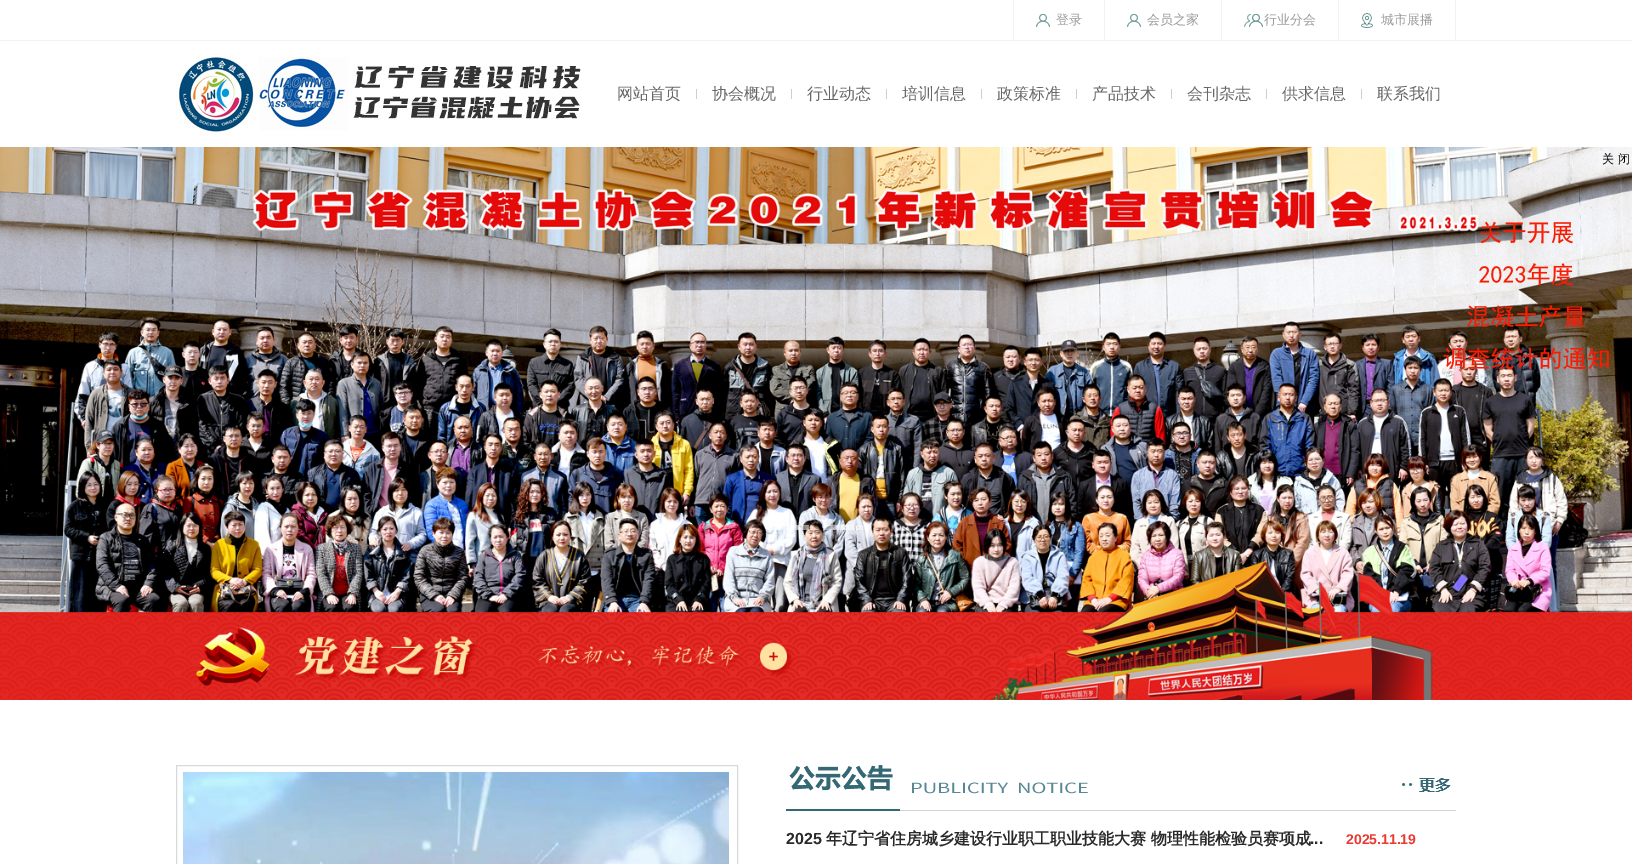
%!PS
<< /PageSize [1632 864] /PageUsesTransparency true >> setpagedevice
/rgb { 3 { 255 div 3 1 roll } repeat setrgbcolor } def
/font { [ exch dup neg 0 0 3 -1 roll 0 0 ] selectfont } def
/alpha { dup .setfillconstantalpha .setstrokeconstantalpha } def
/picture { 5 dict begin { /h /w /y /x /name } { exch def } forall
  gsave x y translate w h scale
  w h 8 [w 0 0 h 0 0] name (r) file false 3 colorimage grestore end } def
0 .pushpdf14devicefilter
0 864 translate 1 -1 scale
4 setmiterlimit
255 255 255 rgb
0 0 1632 864 rectfill
242 242 242 rgb
0 40 1632 1 rectfill
1013 0 1 40 rectfill
(img/1.rgb) 1036 14 14 13 picture
1104 0 1 40 rectfill
(img/1.rgb) 1127 14 14 13 picture
1221 0 1 40 rectfill
(img/2.rgb) 1244 14 19 13 picture
1338 0 1 40 rectfill
(img/3.rgb) 1361 13 12 15 picture
1455 0 1 40 rectfill
(img/4.rgb) 176 57 405 80 picture
[
  [696 89 1 10 207 207 207]
  [791 89 1 10 207 207 207]
  [886 89 1 10 207 207 207]
  [981 89 1 10 207 207 207]
  [1076 89 1 10 207 207 207]
  [1171 89 1 10 207 207 207]
  [1266 89 1 10 207 207 207]
  [1361 89 1 10 207 207 207]
] { aload pop rgb rectfill } forall
(img/5.rgb) 0 147 1632 466 picture
0.5 alpha
255 255 255 rgb
769 525 40 5 rectfill
823 525 40 5 rectfill
1 alpha
(img/6.rgb) 0 560 1632 140 picture
(img/7.rgb) 1443 221 166 149 picture
214 218 220 rgb
176.5 765.5 561 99 rectstroke
(img/8.rgb) 183 772 546 92 picture
211 211 211 rgb
900 810 556 1 rectfill
(img/9.rgb) 786 765 302 46 picture
(img/10.rgb) 1402 778 49 14 picture
/WenQuanYiZenHei-Medium 13 font
155 155 155 rgb
[
  [(登录) 1056 24]
  [(会员之家) 1147 24]
  [(行业分会) 1264 24]
  [(城市展播) 1381 24]
] { aload pop moveto show } forall
/WenQuanYiZenHei-Medium 16 font
103 103 103 rgb
[
  [(网站首页) 617 99]
  [(协会概况) 712 99]
  [(行业动态) 807 99]
  [(培训信息) 902 99]
  [(政策标准) 997 99]
  [(产品技术) 1092 99]
  [(会刊杂志) 1187 99]
  [(供求信息) 1282 99]
  [(联系我们) 1377 99]
] { aload pop moveto show } forall
/WenQuanYiZenHei-Medium 12 font
0 0 0 rgb
1602 163 moveto (关 闭) show
/LiberationSans-Bold 16 font
41 41 41 rgb
786 844 moveto (2025) show
/WenQuanYiZenHei-Bold 16 font
826 844 moveto (年辽宁省住房城乡建设行业职工职业技能大赛 物理性能检验员赛项成) show
/LiberationSans-Bold 16 font
1310 844 moveto (...) show
/LiberationSans-Bold 14 font
232 59 51 rgb
1346 844 moveto (2025.11.19) show
.poppdf14devicefilter showpage
